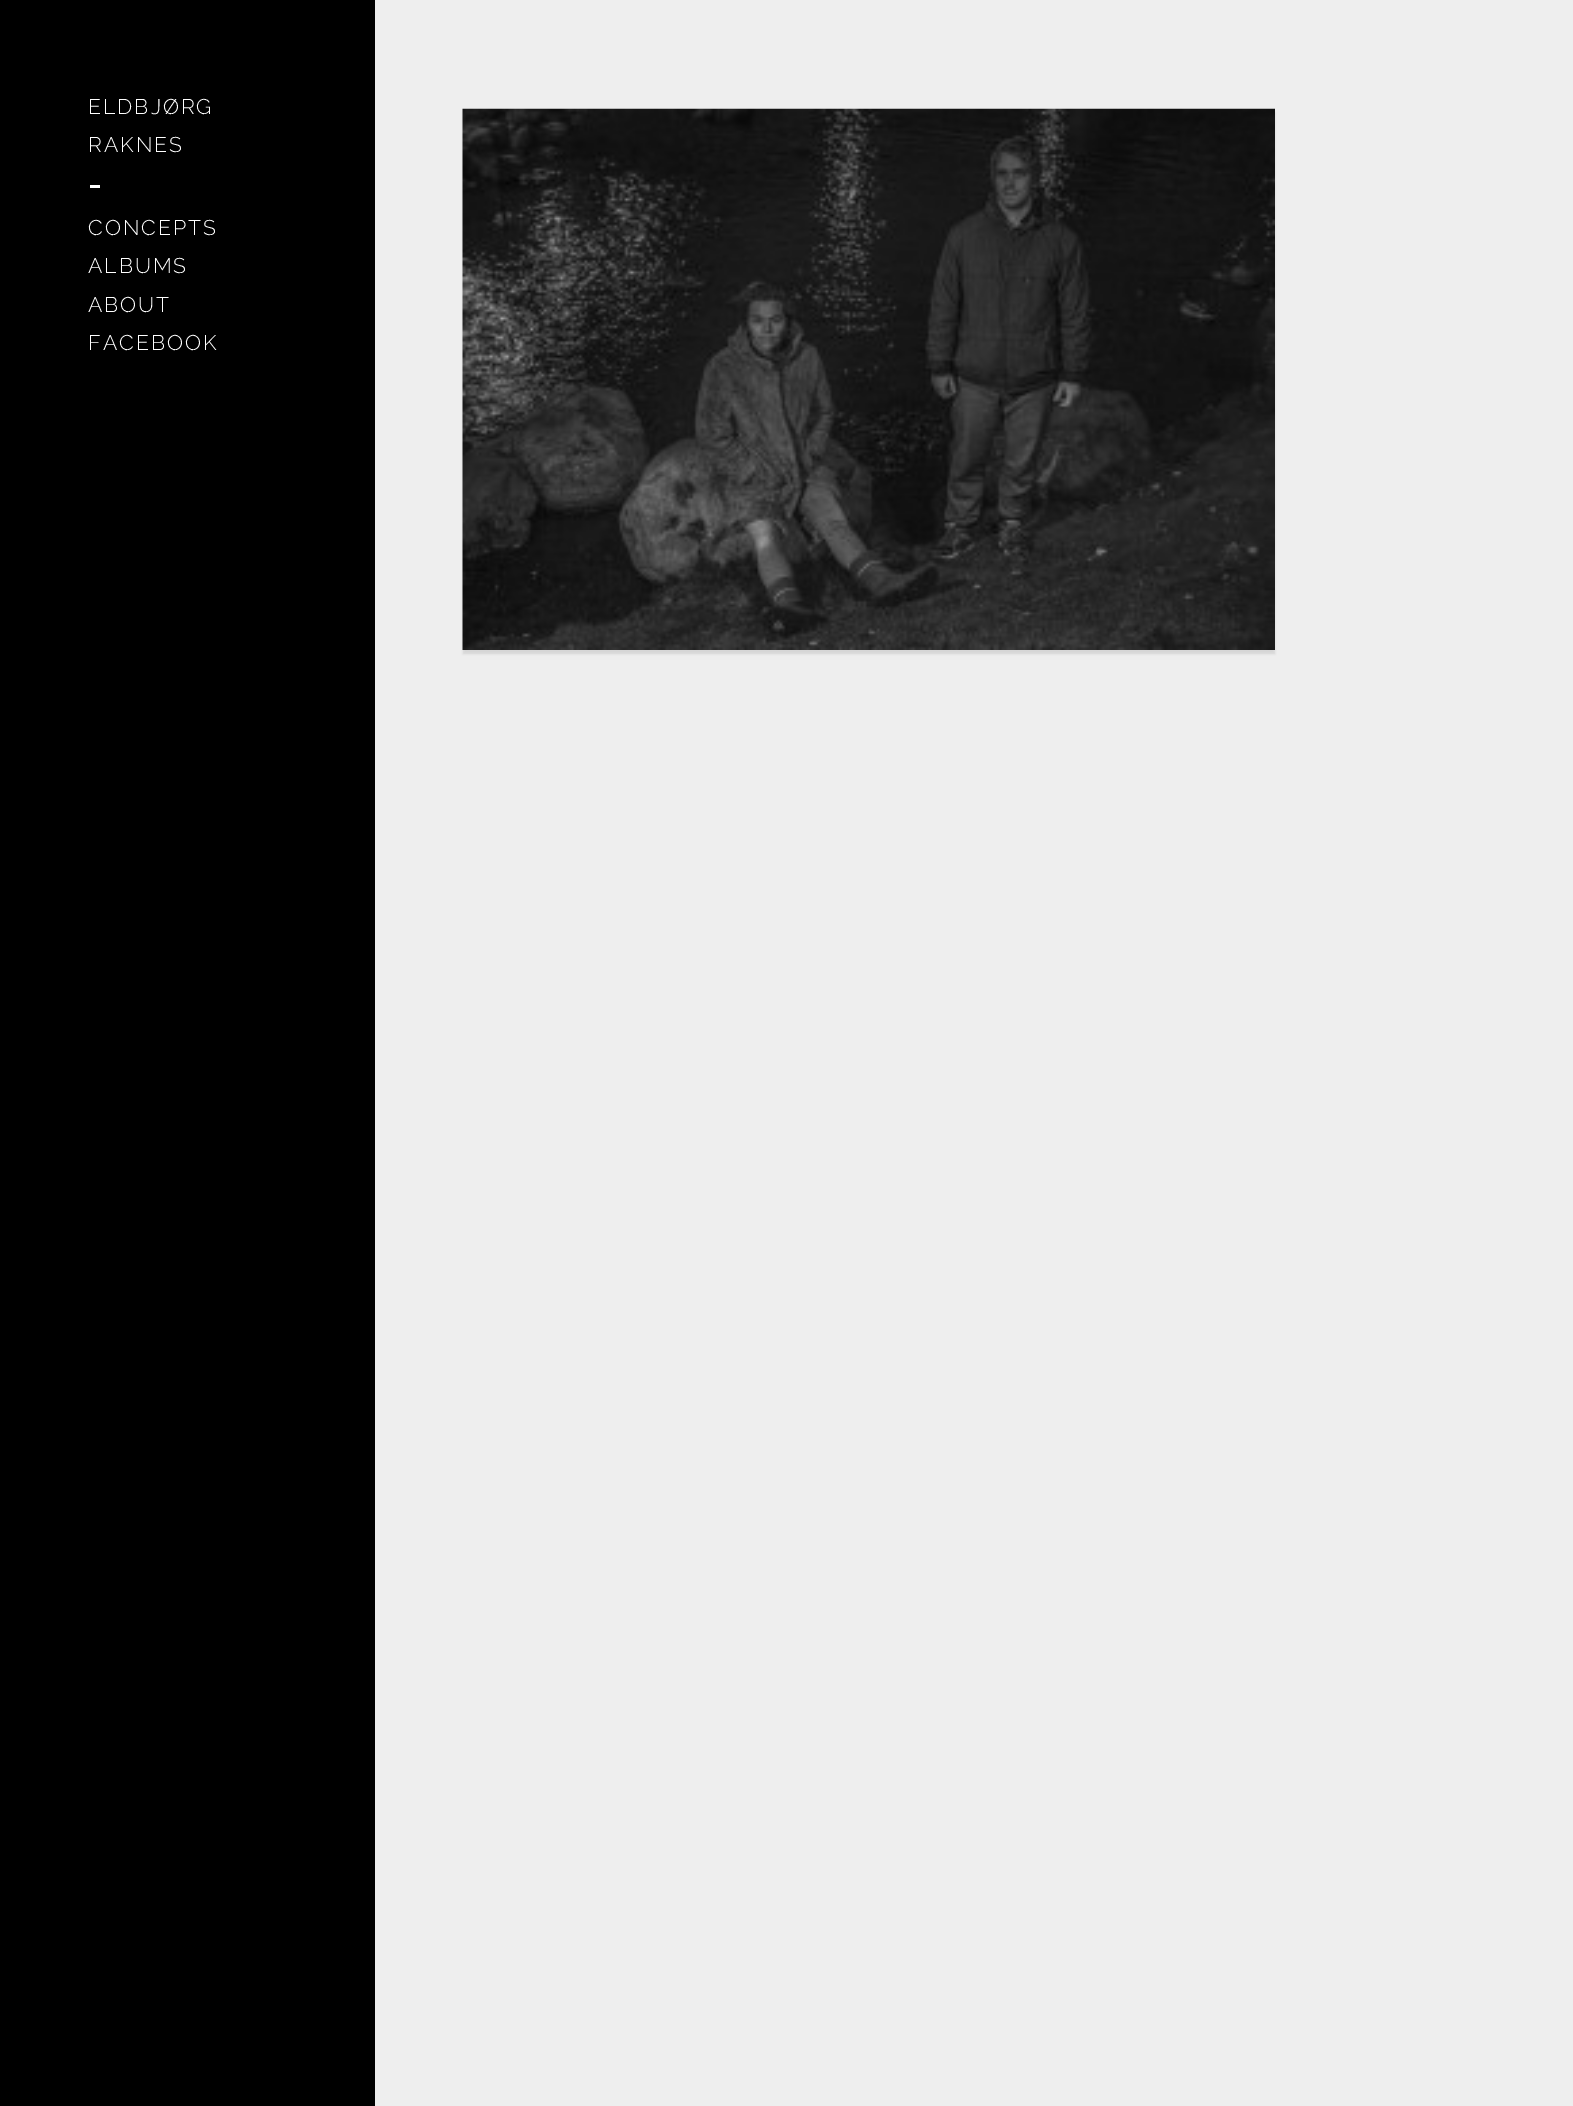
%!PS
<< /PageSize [1573 2106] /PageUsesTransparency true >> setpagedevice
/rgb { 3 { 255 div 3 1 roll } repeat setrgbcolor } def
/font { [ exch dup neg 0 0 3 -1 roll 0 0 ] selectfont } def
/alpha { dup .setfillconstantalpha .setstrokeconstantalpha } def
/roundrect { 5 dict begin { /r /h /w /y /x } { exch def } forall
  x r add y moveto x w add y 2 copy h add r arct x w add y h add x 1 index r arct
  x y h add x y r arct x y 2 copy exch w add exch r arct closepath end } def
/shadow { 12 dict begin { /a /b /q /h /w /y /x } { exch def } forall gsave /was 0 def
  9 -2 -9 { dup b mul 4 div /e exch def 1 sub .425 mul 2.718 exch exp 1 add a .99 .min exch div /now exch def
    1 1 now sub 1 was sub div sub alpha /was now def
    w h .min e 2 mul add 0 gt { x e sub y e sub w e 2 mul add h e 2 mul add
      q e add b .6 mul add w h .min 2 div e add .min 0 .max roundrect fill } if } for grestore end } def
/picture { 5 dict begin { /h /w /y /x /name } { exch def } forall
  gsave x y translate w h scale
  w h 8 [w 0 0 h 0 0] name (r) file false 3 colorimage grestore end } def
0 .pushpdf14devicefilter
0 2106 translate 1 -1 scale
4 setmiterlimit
238 238 238 rgb
0 0 1573 2106 rectfill
0 0 0 rgb
0 0 375 2106 rectfill
255 255 255 rgb
90 185 10 3 rectfill
0 0 0 rgb
463 113 812 541 0 1 0.1 shadow
(img/1.rgb) 462 108 813 542 picture
/Raleway-Light 21.25 font
255 255 255 rgb
88 114 moveto 2 0 (ELDBJØRG) ashow
88 152 moveto 2 0 (RAKNES) ashow
88 235 moveto 2 0 (CONCEPTS) ashow
88 273 moveto 2 0 (ALBUMS) ashow
88 312 moveto 2 0 (ABOUT) ashow
88 350 moveto 2 0 (FACEBOOK) ashow
.poppdf14devicefilter showpage
